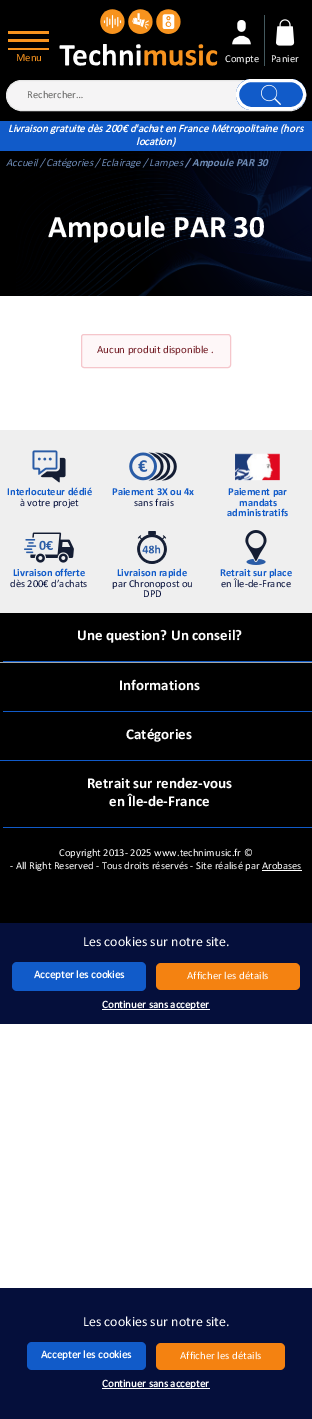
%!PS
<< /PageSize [312 1419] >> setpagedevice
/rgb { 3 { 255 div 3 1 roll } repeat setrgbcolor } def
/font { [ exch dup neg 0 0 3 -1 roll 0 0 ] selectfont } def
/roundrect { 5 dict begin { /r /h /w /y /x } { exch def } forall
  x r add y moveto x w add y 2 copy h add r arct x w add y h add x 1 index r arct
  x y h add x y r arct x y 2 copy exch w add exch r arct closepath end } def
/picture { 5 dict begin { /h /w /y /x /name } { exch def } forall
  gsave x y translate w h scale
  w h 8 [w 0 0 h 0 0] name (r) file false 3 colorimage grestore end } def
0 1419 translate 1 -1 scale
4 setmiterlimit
255 255 255 rgb
0 0 312 1419 rectfill
[
  [0 0 312 121 0 0 0]
  [8 31 41 3 247 147 30]
  [8 39 41 3 247 147 30]
  [8 48 41 2 247 147 30]
] { aload pop rgb rectfill } forall
(img/1.rgb) 59 9 159 57 picture
68 89 94 rgb
264 15 1 51 rectfill
(img/2.rgb) 232 20 19 25 picture
(img/3.rgb) 276 19 19 27 picture
245 244 245 rgb
6.5 80.5 299 30 15 roundrect gsave fill grestore
230 230 230 rgb
stroke
17 91 201 rgb
236 79 70 31 15.5 roundrect fill
(img/4.rgb) 261 84 20 21 picture
255 255 255 rgb
3 setlinewidth
237.5 80.5 67 28 14 roundrect stroke
17 91 201 rgb
0 121 312 30 rectfill
0 0 0 rgb
0 151 16 145 rectfill
(img/5.rgb) 16 151 296 145 picture
254 247 248 rgb
81.5 334.5 149 33 2.5 roundrect gsave fill grestore
245 198 203 rgb
1 setlinewidth
stroke
239 239 239 rgb
0 430 312 183 rectfill
(img/6.rgb) 32 450 34 33 picture
(img/7.rgb) 129 452 48 29 picture
(img/8.rgb) 235 453 45 28 picture
(img/9.rgb) 24 532 50 31 picture
(img/10.rgb) 137 531 30 33 picture
(img/11.rgb) 245 530 22 35 picture
[
  [0 613 312 310 0 0 0]
  [0 662 312 1 158 166 173]
  [3 661 309 1 17 91 201]
  [3 711 309 1 17 91 201]
  [0 760 312 1 17 91 201]
  [3 827 309 1 17 91 201]
  [262 870 40 1 255 255 255]
  [0 1288 312 131 5 15 59]
] { aload pop rgb rectfill } forall
17 91 201 rgb
27 1342 119 28 5 roundrect fill
244 130 17 rgb
156 1343 129 27 5 roundrect fill
255 255 255 rgb
102 1388 108 1 rectfill
5 15 59 rgb
0 923 312 101 rectfill
17 91 201 rgb
12 962 134 29 5 roundrect fill
244 130 17 rgb
156 963 144 27 5 roundrect fill
255 255 255 rgb
102 1009 108 1 rectfill
/Calibri-Regular 10.9 font
247 147 30 rgb
16 61 moveto (Menu) show
/Calibri-Regular 10.6 font
255 255 255 rgb
225 62 moveto (Compte) show
271 62 moveto (Panier) show
103 103 102 rgb
27 98 moveto (Rechercher…) show
/Calibri-BoldItalic 10.9 font
255 255 255 rgb
8 132 moveto (Livraison gratuite dès 200€ d'achat en France Métropolitaine \(hors) show
136 145 moveto (location\)) show
/Calibri-Italic 10.9 font
109 138 181 rgb
[
  [(Accueil) 6 166]
  [(/) 40 166]
  [(Catégories) 46 166]
  [(/) 95 166]
  [(Eclairage) 101 166]
  [(/) 143 166]
  [(Lampes) 149 166]
] { aload pop moveto show } forall
/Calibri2-BoldItalic 10.9 font
185 166 moveto (/) show
192 166 moveto (Ampoule PAR 30) show
/Calibri2-Bold 31.25 font
255 255 255 rgb
48 237 moveto (Ampoule PAR 30) show
/Calibri-Regular 10.9 font
114 28 36 rgb
97 353 moveto (Aucun produit disponible .) show
/Calibri2-Bold 10.6 font
17 91 201 rgb
7 495 moveto (Interlocuteur dédié) show
/Calibri-Regular 10.6 font
5 15 59 rgb
20 506 moveto (à votre projet) show
/Calibri2-Bold 10.6 font
17 91 201 rgb
112 495 moveto (Paiement 3X ou 4x) show
/Calibri-Regular 10.6 font
5 15 59 rgb
134 506 moveto (sans frais) show
/Calibri2-Bold 10.6 font
17 91 201 rgb
[
  [(Paiement par) 228 495]
  [(mandats) 239 506]
  [(administratifs) 227 516]
  [(Livraison offerte) 13 576]
] { aload pop moveto show } forall
/Calibri-Regular 10.6 font
5 15 59 rgb
10 587 moveto (dès 200€ d’achats) show
/Calibri2-Bold 10.6 font
17 91 201 rgb
117 576 moveto (Livraison rapide) show
/Calibri-Regular 10.6 font
5 15 59 rgb
112 587 moveto (par Chronopost ou) show
143 597 moveto (DPD) show
/Calibri2-Bold 10.6 font
17 91 201 rgb
220 576 moveto (Retrait sur place) show
/Calibri-Regular 10.6 font
5 15 59 rgb
221 587 moveto (en Île-de-France) show
/Calibri2-Bold 15 font
255 255 255 rgb
[
  [(Une question? Un conseil?) 77 640]
  [(Informations) 119 690]
  [(Catégories) 126 739]
  [(Retrait sur rendez-vous) 87 788]
  [(en Île-de-France) 109 806]
] { aload pop moveto show } forall
/Calibri-Regular 10.6 font
59 856 moveto (Copyright 2013- 2025 www.technimusic.fr ©) show
10 869 moveto (- All Right Reserved - Tous droits réservés - Site réalisé par Arobases) show
/Calibri-Regular 14 font
83 1326 moveto (Les cookies sur notre site.) show
/Calibri-Bold 11 font
41 1358 moveto (Accepter les cookies) show
/Calibri-Regular 10.9 font
180 1359 moveto (Afficher les détails) show
/Calibri-Bold 10.9 font
102 1387 moveto (Continuer sans accepter) show
/Calibri-Regular 14 font
83 946 moveto (Les cookies sur notre site.) show
/Calibri-Bold 11 font
34 978 moveto (Accepter les cookies) show
/Calibri-Regular 10.9 font
187 979 moveto (Afficher les détails) show
/Calibri-Bold 10.9 font
102 1008 moveto (Continuer sans accepter) show
showpage
